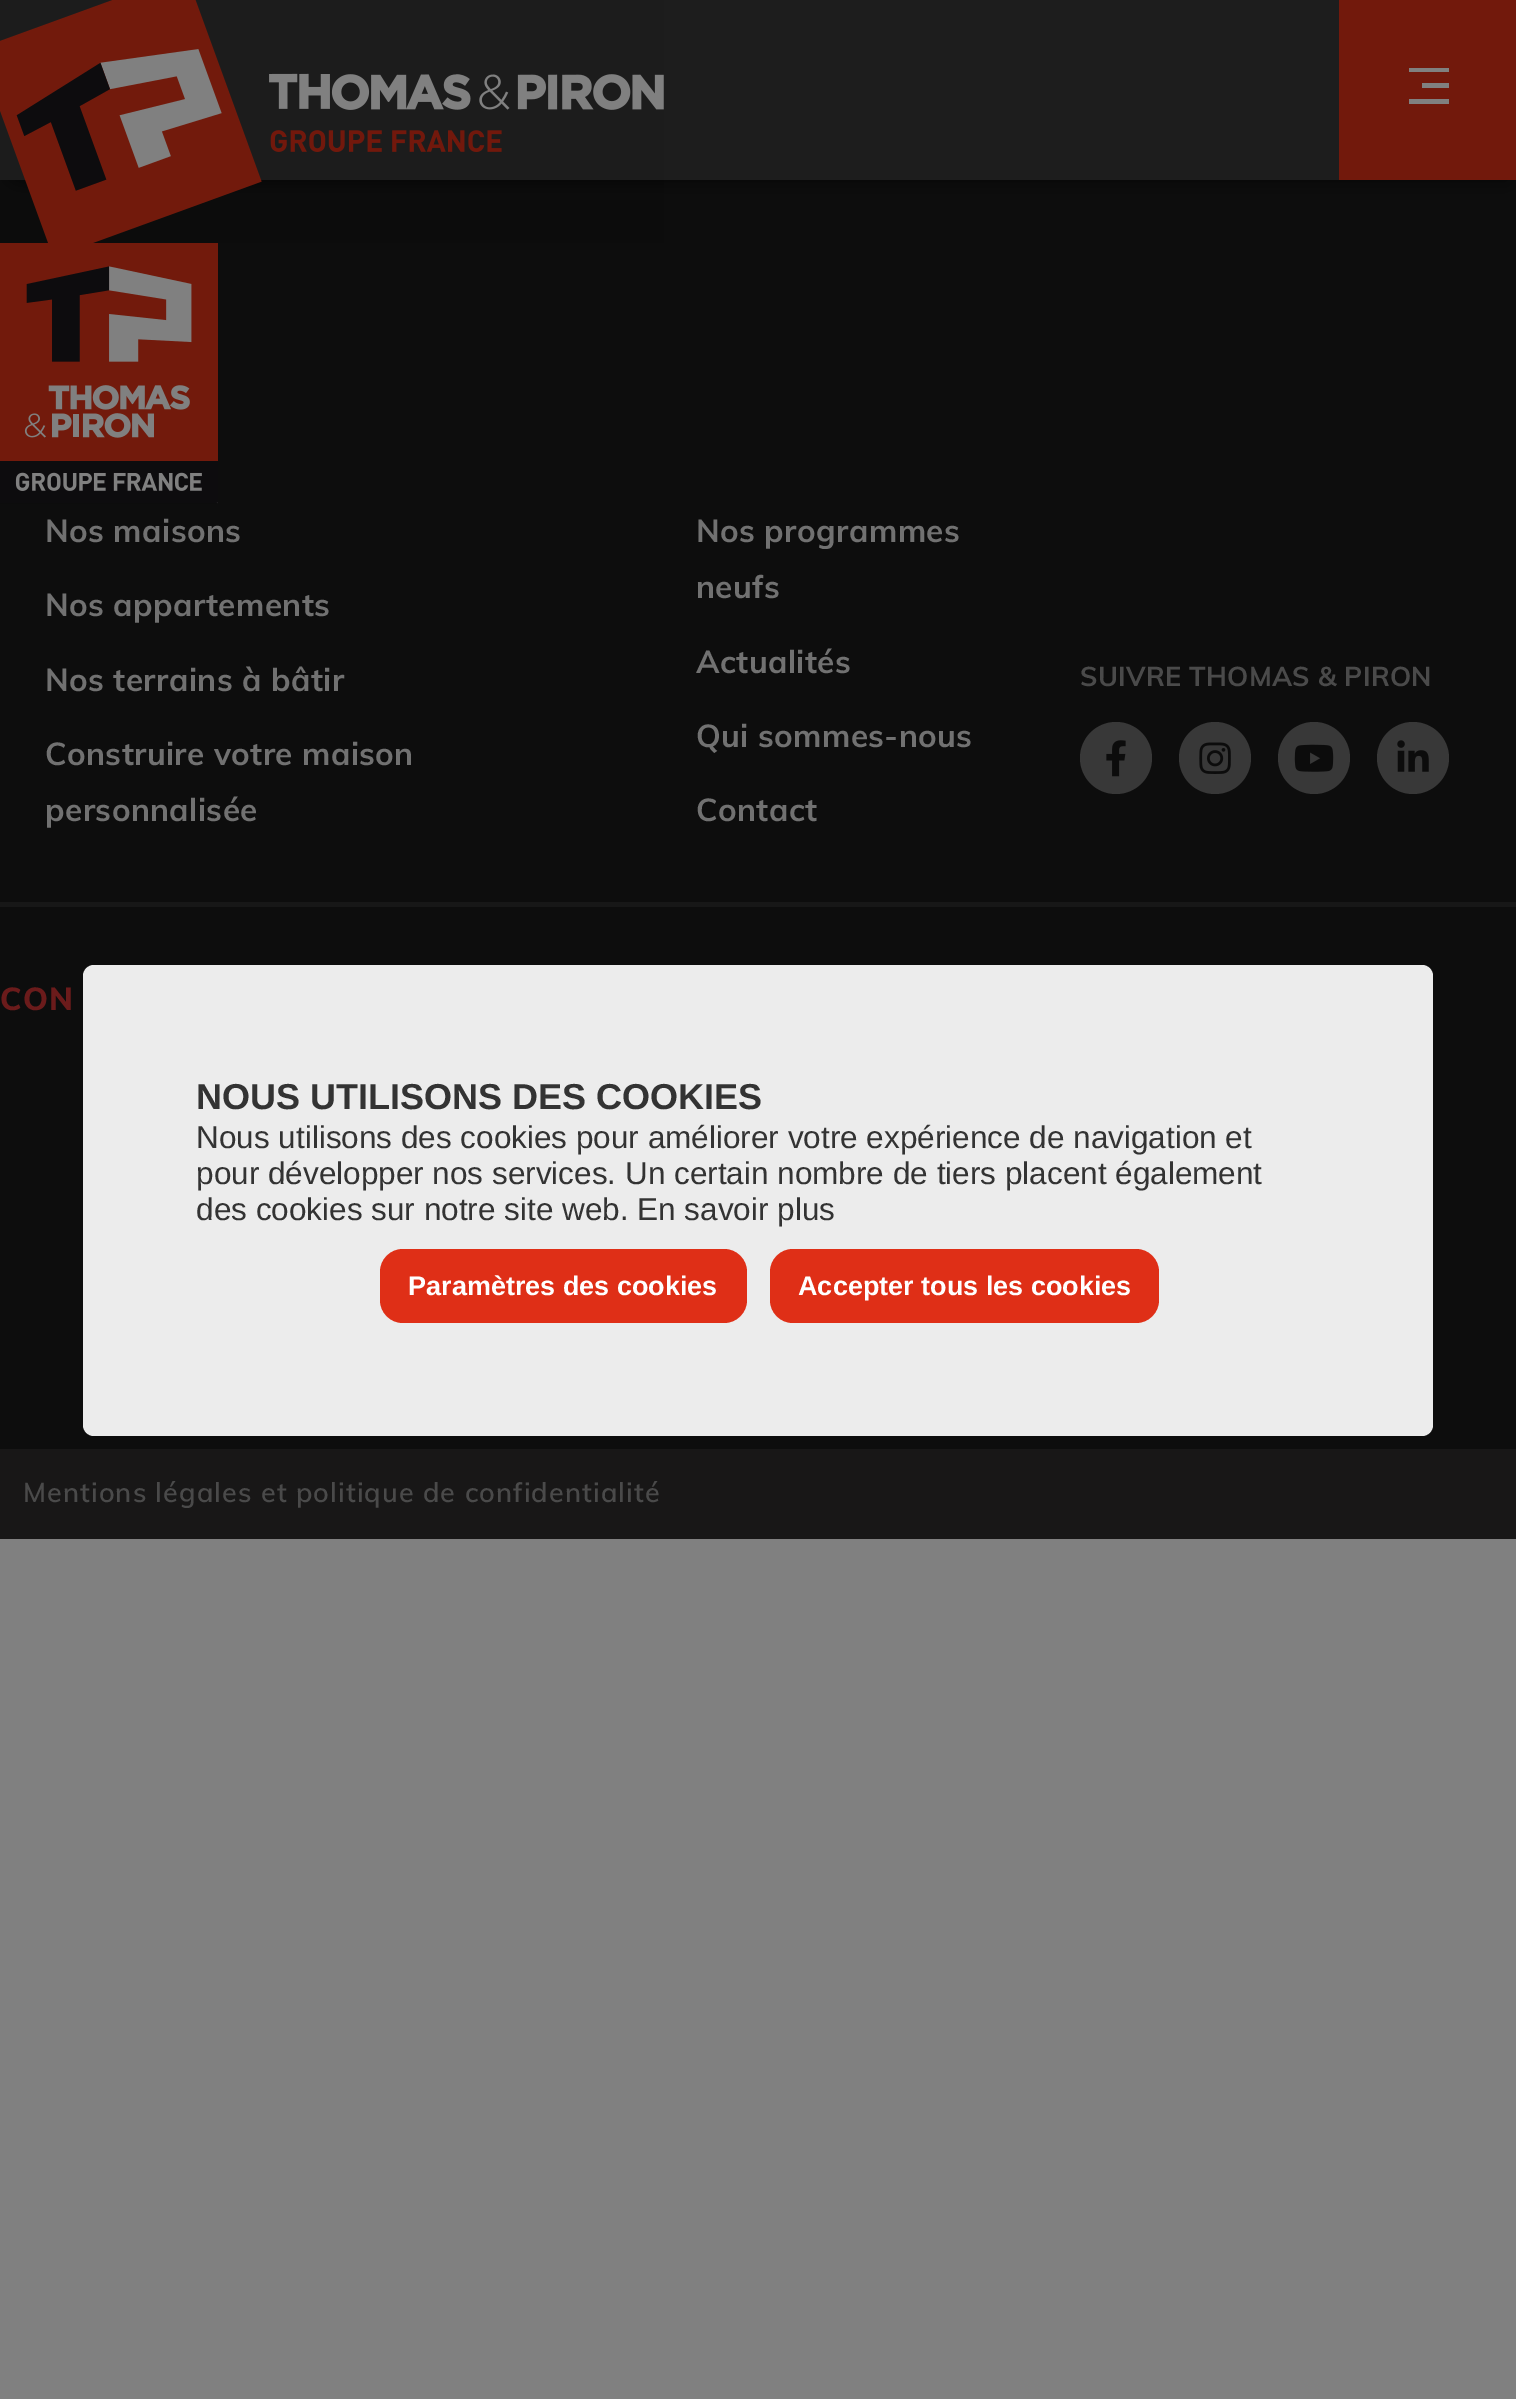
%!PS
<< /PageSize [1516 2399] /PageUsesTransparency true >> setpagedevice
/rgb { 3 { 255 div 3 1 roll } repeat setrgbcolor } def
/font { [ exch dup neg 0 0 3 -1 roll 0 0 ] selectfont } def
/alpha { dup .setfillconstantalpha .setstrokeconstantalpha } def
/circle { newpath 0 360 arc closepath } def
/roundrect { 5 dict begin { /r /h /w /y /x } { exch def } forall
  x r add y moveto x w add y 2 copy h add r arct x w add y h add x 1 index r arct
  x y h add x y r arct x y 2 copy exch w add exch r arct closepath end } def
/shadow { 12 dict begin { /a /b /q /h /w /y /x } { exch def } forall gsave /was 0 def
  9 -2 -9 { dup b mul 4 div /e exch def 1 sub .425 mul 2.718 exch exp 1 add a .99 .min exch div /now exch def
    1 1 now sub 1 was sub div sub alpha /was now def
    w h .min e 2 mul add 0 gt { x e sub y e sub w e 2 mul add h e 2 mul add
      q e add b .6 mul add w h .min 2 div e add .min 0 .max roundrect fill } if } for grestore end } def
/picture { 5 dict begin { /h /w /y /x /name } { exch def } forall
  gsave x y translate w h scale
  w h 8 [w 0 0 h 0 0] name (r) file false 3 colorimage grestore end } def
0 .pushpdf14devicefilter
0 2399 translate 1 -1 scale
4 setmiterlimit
128 128 128 rgb
0 0 1516 2399 rectfill
13 13 13 rgb
0 180 1516 1269 rectfill
0 0 0 rgb
9 18 1499 162 0 11 0.72 shadow
29 29 29 rgb
0 0 1339 180 rectfill
(img/1.rgb) 0 0 664 243 picture
114 25 12 rgb
1339 0 177 180 rectfill
128 128 128 rgb
1449 104 moveto 1409 104 lineto 1409 99 lineto 1449 99 lineto closepath 1449 88 moveto 1422 88 lineto 1422 83 lineto 1449 83 lineto closepath 1449 72 moveto 1409 72 lineto 1409 68 lineto 1449 68 lineto closepath fill
23 23 23 rgb
0 902 1516 5 rectfill
(img/2.rgb) 0 243 218 261 picture
56 56 56 rgb
1116 758 36 circle fill
(img/3.rgb) 1106 740 20 37 picture
1215 758 36 circle fill
(img/4.rgb) 1199 742 32 32 picture
1314 758 36 circle fill
(img/5.rgb) 1294 744 40 28 picture
1413 758 36 circle fill
(img/6.rgb) 1397 740 32 32 picture
24 23 23 rgb
0 1449 1516 90 rectfill
236 236 236 rgb
83 965 1350 471 11 roundrect fill
223 47 23 rgb
380 1249 367 74 23 roundrect fill
770 1249 389 74 23 roundrect fill
/Muli-Bold 31.5 font
113 113 113 rgb
45 542 moveto 0.4 0 (Nos maisons) ashow
45 616 moveto 0.4 0 (Nos appartements) ashow
45 691 moveto 0.4 0 (Nos terrains à bâtir) ashow
45 765 moveto 0.4 0 (Construire votre maison) ashow
45 821 moveto 0.4 0 (personnalisée) ashow
696 542 moveto 0.4 0 (Nos programmes) ashow
696 598 moveto 0.4 0 (neufs) ashow
696 673 moveto 0.4 0 (Actualités) ashow
696 747 moveto 0.4 0 (Qui sommes-nous) ashow
696 821 moveto 0.4 0 (Contact) ashow
/Muli-Bold 27 font
74 74 74 rgb
1080 686 moveto 0.3 0 (SUIVRE THOMAS & PIRON) ashow
/Muli-ExtraBold 31.5 font
107 27 27 rgb
0 1010 moveto 1 0 (CON) ashow
/Muli-SemiBold 27 font
74 74 74 rgb
23 1502 moveto 1.1 0 (Mentions légales et politique de confidentialité) ashow
/LiberationSans-Bold 36 font
51 51 51 rgb
196 1109 moveto (NOUS UTILISONS DES COOKIES) show
/LiberationSans-Regular 31.5 font
[
  [(Nous utilisons des cookies pour améliorer votre expérience de navigation et) 196 1148]
  [(pour développer nos services. Un certain nombre de tiers placent également) 196 1184]
  [(des cookies sur notre site web. En savoir plus) 196 1220]
] { aload pop moveto show } forall
/LiberationSans-Bold 27 font
255 255 255 rgb
408 1295 moveto (Paramètres des cookies) show
798 1295 moveto (Accepter tous les cookies) show
.poppdf14devicefilter showpage
